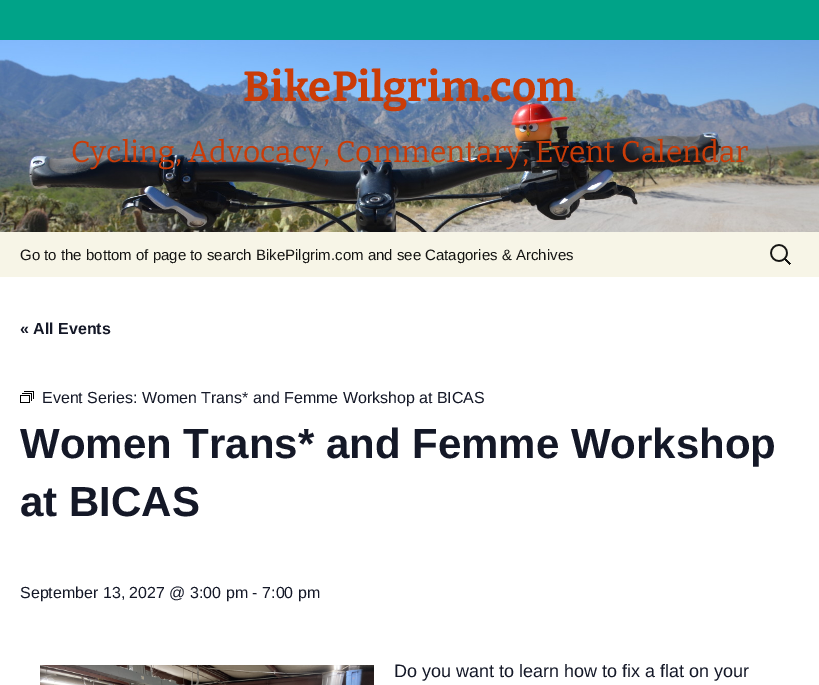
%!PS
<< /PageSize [819 685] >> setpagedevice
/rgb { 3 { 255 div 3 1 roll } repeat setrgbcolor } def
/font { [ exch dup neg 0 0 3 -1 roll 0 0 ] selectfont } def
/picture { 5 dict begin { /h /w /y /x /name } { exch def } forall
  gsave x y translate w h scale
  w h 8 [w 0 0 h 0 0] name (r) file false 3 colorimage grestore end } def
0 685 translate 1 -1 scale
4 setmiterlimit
0 163 136 rgb
0 0 819 685 rectfill
255 255 255 rgb
0 277 819 408 rectfill
(img/1.rgb) 0 40 819 192 picture
247 245 231 rgb
0 232 819 45 rectfill
(img/2.rgb) 770 244 21 21 picture
(img/3.rgb) 20 391 14 12 picture
(img/4.rgb) 40 665 334 20 picture
/Bitter-Thin 42 font
202 60 8 rgb
243 101 moveto (BikePilgrim.com) show
/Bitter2-Thin 30 font
71 162 moveto (Cycling, Advocacy, Commentary, Event Calendar) show
/LiberationSans-Regular 15 font
20 20 18 rgb
20 260 moveto (Go to the bottom of page to search BikePilgrim.com and see Catagories & Archives) show
/LiberationSans-Bold 16 font
20 24 39 rgb
20 334 moveto (« All Events) show
/LiberationSans-Regular 16 font
42 403 moveto (Event Series: Women Trans* and Femme Workshop at BICAS) show
/LiberationSans-Bold 42 font
20 458 moveto (Women Trans* and Femme Workshop) show
20 516 moveto (at BICAS) show
/LiberationSans-Regular 16 font
20 598 moveto (September 13, 2027 @ 3:00 pm - 7:00 pm) show
/LiberationSans-Regular 18 font
394 677 moveto (Do you want to learn how to fix a flat on your) show
showpage
